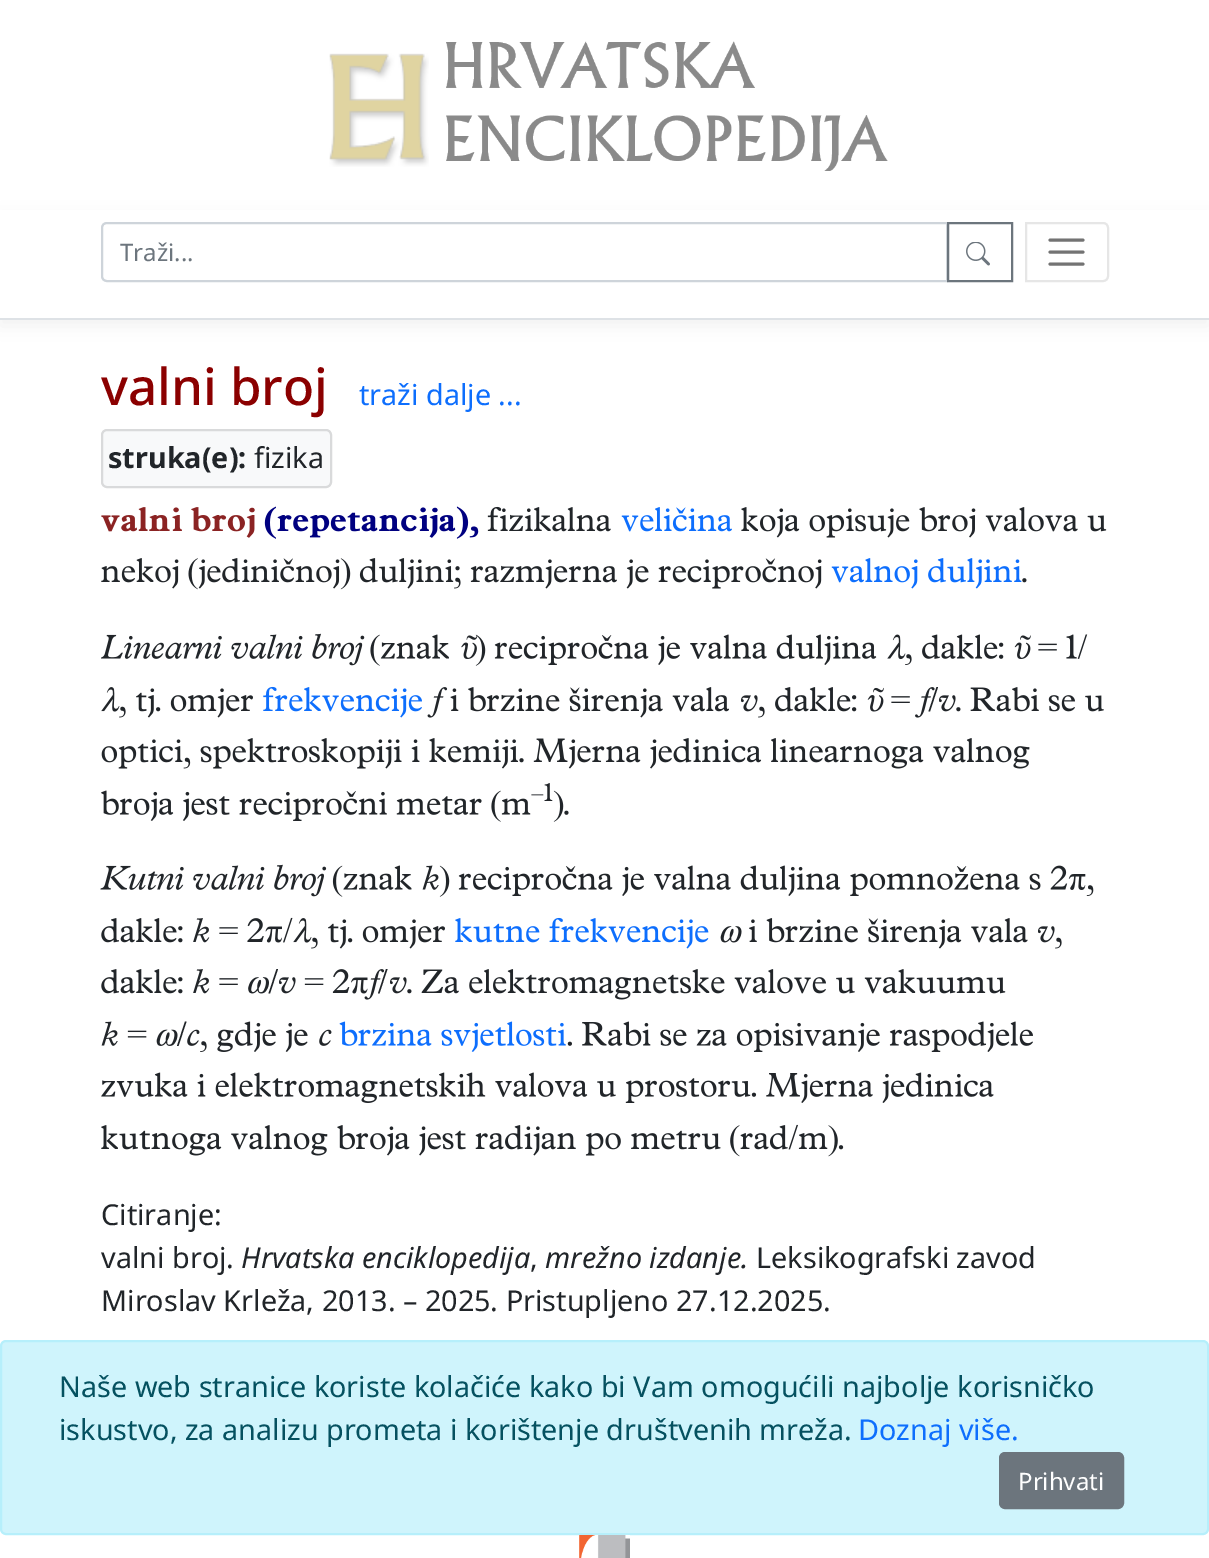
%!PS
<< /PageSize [1209 1558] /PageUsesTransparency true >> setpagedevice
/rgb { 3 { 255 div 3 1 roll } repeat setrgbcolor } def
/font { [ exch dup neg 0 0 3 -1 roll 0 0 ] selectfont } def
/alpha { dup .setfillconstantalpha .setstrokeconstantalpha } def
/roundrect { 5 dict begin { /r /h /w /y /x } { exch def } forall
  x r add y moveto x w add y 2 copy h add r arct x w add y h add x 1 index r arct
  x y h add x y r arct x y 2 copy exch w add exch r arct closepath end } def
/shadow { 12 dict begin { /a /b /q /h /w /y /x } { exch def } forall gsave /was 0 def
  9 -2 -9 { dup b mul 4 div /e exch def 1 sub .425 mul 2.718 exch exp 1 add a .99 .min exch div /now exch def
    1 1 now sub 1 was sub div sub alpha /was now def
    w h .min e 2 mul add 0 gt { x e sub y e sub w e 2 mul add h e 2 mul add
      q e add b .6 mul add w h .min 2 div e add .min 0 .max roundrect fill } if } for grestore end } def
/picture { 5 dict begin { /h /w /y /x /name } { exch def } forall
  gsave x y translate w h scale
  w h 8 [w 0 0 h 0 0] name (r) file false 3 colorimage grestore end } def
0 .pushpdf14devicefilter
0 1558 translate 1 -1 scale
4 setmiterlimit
255 255 255 rgb
0 0 1209 1558 rectfill
(img/1.rgb) 329 53 100 114 picture
(img/2.rgb) 446 41 442 130 picture
0 0 0 rgb
0 216 1209 110 0 9 0.05 shadow
255 255 255 rgb
0 210 1209 108 rectfill
222 226 230 rgb
0 318 1209 2 rectfill
206 212 218 rgb
2 setlinewidth
107 223 moveto 947 223 lineto 947 281 lineto 107 281 lineto 104 281 102 279 102 276 curveto 102 228 lineto 102 225 104 223 107 223 curveto closepath stroke
108 117 125 rgb
948 223 64 58 rectstroke
(img/3.rgb) 966 242 24 24 picture
230 230 230 rgb
1026 223 moveto 1103 223 lineto 1106 223 1108 225 1108 228 curveto 1108 276 lineto 1108 279 1106 281 1103 281 curveto 1026 281 lineto closepath stroke
115 115 115 rgb
3 setlinewidth
1 setlinecap
1050 240 moveto 1083 240 lineto 1050 252 moveto 1083 252 lineto 1050 264 moveto 1083 264 lineto stroke
248 249 250 rgb
102 430 229 57 5 roundrect gsave fill grestore
217 218 219 rgb
2 setlinewidth
0 setlinecap
stroke
(img/4.rgb) 101 507 154 31 picture
(img/5.rgb) 264 506 215 33 picture
(img/6.rgb) 487 506 124 26 picture
(img/7.rgb) 621 507 111 25 picture
(img/8.rgb) 741 507 366 31 picture
(img/9.rgb) 101 558 721 32 picture
(img/10.rgb) 831 558 191 31 picture
(img/11.rgb) 1022 578 5 5 picture
(img/12.rgb) 101 633 264 33 picture
(img/13.rgb) 370 634 79 32 picture
(img/14.rgb) 461 635 17 24 picture
(img/15.rgb) 475 634 402 32 picture
(img/16.rgb) 887 634 19 26 picture
(img/17.rgb) 905 634 99 31 picture
(img/18.rgb) 1014 635 17 24 picture
(img/19.rgb) 1038 634 50 25 picture
(img/20.rgb) 101 687 19 25 picture
(img/21.rgb) 263 686 159 32 picture
(img/22.rgb) 427 687 21 31 picture
(img/23.rgb) 450 687 279 31 picture
(img/24.rgb) 758 687 99 31 picture
(img/25.rgb) 867 687 17 25 picture
(img/26.rgb) 915 687 20 31 picture
(img/27.rgb) 119 688 134 30 picture
(img/28.rgb) 741 695 17 17 picture
(img/29.rgb) 891 696 19 7 picture
33 37 41 rgb
928.5 711.5 moveto 936.5 687 lineto 938 687 lineto 930 711.5 lineto closepath fill
(img/28.rgb) 939 695 17 17 picture
(img/30.rgb) 956 687 148 25 picture
(img/31.rgb) 101 738 929 31 picture
(img/32.rgb) 101 790 430 32 picture
(img/33.rgb) 531 783 22 18 picture
(img/34.rgb) 553 790 16 32 picture
(img/35.rgb) 100 864 227 33 picture
(img/36.rgb) 332 865 80 32 picture
(img/37.rgb) 422 865 17 25 picture
(img/38.rgb) 439 865 655 32 picture
(img/39.rgb) 101 918 82 25 picture
(img/40.rgb) 193 918 17 25 picture
(img/41.rgb) 219 917 74 26 picture
(img/20.rgb) 293 918 19 25 picture
(img/27.rgb) 311 919 134 30 picture
(img/42.rgb) 455 917 254 32 picture
(img/43.rgb) 720 926 22 17 picture
(img/44.rgb) 749 918 279 31 picture
(img/28.rgb) 1038 926 17 17 picture
(img/45.rgb) 1055 937 7 12 picture
(img/39.rgb) 101 969 82 25 picture
(img/40.rgb) 193 969 17 25 picture
(img/48.rgb) 248 977 21 17 picture
268.5 993.5 moveto 276.5 969 lineto 278 969 lineto 270 993.5 lineto closepath fill
(img/46.rgb) 304 969 64 25 picture
(img/47.rgb) 364 969 21 31 picture
(img/29.rgb) 219 978 19 7 picture
(img/28.rgb) 279 977 17 17 picture
378 993.5 moveto 386 969 lineto 387.5 969 lineto 379.5 993.5 lineto closepath fill
(img/28.rgb) 390 977 17 17 picture
(img/49.rgb) 407 969 599 31 picture
(img/37.rgb) 101 1021 17 25 picture
(img/50.rgb) 127 1030 20 8 picture
(img/51.rgb) 156 1029 22 17 picture
177 1046 moveto 185 1021.5 lineto 186.5 1021.5 lineto 178.5 1046 lineto closepath fill
(img/52.rgb) 187 1029 13 17 picture
(img/53.rgb) 200 1021 108 31 picture
(img/52.rgb) 319 1029 13 17 picture
(img/54.rgb) 339 1021 227 31 picture
(img/55.rgb) 567 1021 466 31 picture
(img/56.rgb) 101 1072 893 31 picture
(img/57.rgb) 101 1124 743 33 picture
207 244 252 rgb
1 1341 1207 193 5 roundrect gsave fill grestore
182 239 251 rgb
stroke
108 117 125 rgb
1000 1453 123 55 5 roundrect gsave fill grestore
stroke
(img/58.rgb) 579 1535 51 23 picture
/NotoSans-Regular 24 font
120 261 moveto (Traži...) show
/NotoSans-Medium 51 font
139 0 0 rgb
101 405 moveto (valni broj) show
/NotoSans-Regular 28.8 font
13 110 253 rgb
359 405 moveto (traži dalje ...) show
/NotoSans-Bold 28.8 font
33 37 41 rgb
108 468 moveto (struka\(e\):) show
/NotoSans-Regular 28.8 font
[
  [(fizika) 254 468]
  [(Citiranje:) 101 1225]
  [(valni broj.) 101 1268]
] { aload pop moveto show } forall
/NotoSans-Italic 28.8 font
241 1268 moveto (Hrvatska enciklopedija) show
/NotoSans-Regular 28.8 font
530 1268 moveto (,) show
/NotoSans-Italic 28.8 font
545 1268 moveto (mrežno izdanje.) show
/NotoSans-Regular 28.8 font
756 1268 moveto (Leksikografski zavod) show
101 1311 moveto (Miroslav Krleža, 2013. – 2025. Pristupljeno 27.12.2025.) show
5 81 96 rgb
59 1397 moveto (Naše web stranice koriste kolačiće kako bi Vam omogućili najbolje korisničko) show
59 1440 moveto (iskustvo, za analizu prometa i korištenje društvenih mreža.) show
13 110 253 rgb
858 1440 moveto (Doznaj više.) show
/NotoSans-Regular 24 font
255 255 255 rgb
1018 1490 moveto (Prihvati) show
.poppdf14devicefilter showpage
